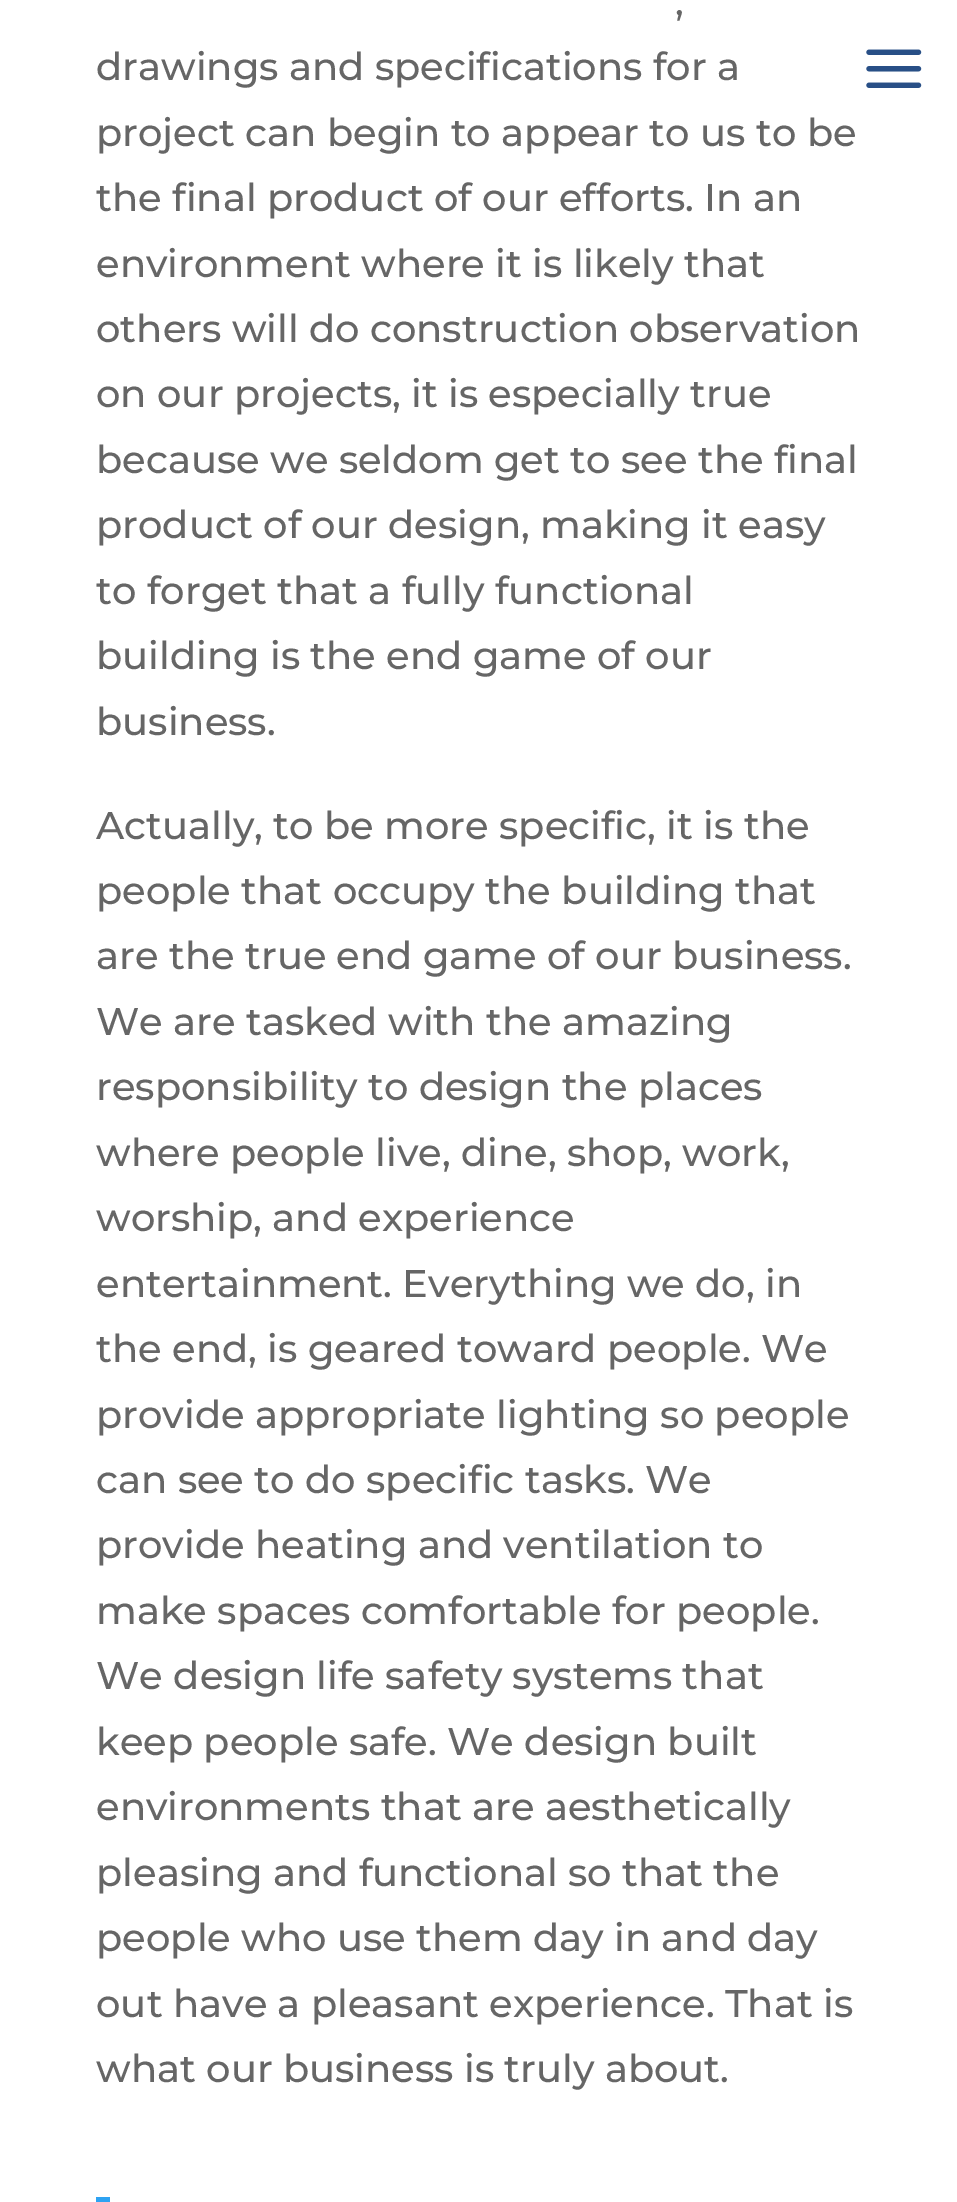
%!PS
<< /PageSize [957 2202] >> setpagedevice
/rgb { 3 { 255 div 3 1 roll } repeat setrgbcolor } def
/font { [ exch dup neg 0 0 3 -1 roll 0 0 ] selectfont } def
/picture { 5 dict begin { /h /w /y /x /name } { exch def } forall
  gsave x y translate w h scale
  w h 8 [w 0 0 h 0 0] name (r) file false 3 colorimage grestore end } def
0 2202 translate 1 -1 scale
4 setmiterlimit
255 255 255 rgb
0 0 957 2202 rectfill
46 163 242 rgb
96 2197 14 5 rectfill
(img/1.rgb) 866 49 56 39 picture
/Montserrat-Medium 38.5 font
102 102 102 rgb
[
  [(,) 675 15]
  [(drawings and specifications for a) 96 80]
  [(project can begin to appear to us to be) 96 146]
  [(the final product of our efforts. In an) 96 211]
  [(environment where it is likely that) 96 277]
  [(others will do construction observation) 96 342]
  [(on our projects, it is especially true) 96 407]
  [(because we seldom get to see the final) 96 473]
  [(product of our design, making it easy) 96 538]
  [(to forget that a fully functional) 96 604]
  [(building is the end game of our) 96 669]
  [(business.) 96 735]
  [(Actually, to be more specific, it is the) 96 839]
  [(people that occupy the building that) 96 904]
  [(are the true end game of our business.) 96 969]
  [(We are tasked with the amazing) 96 1035]
  [(responsibility to design the places) 96 1100]
  [(where people live, dine, shop, work,) 96 1166]
  [(worship, and experience) 96 1231]
  [(entertainment. Everything we do, in) 96 1297]
  [(the end, is geared toward people. We) 96 1362]
  [(provide appropriate lighting so people) 96 1428]
  [(can see to do specific tasks. We) 96 1493]
  [(provide heating and ventilation to) 96 1558]
  [(make spaces comfortable for people.) 96 1624]
  [(We design life safety systems that) 96 1689]
  [(keep people safe. We design built) 96 1755]
  [(environments that are aesthetically) 96 1820]
  [(pleasing and functional so that the) 96 1886]
  [(people who use them day in and day) 96 1951]
  [(out have a pleasant experience. That is) 96 2017]
  [(what our business is truly about.) 96 2082]
] { aload pop moveto show } forall
showpage
